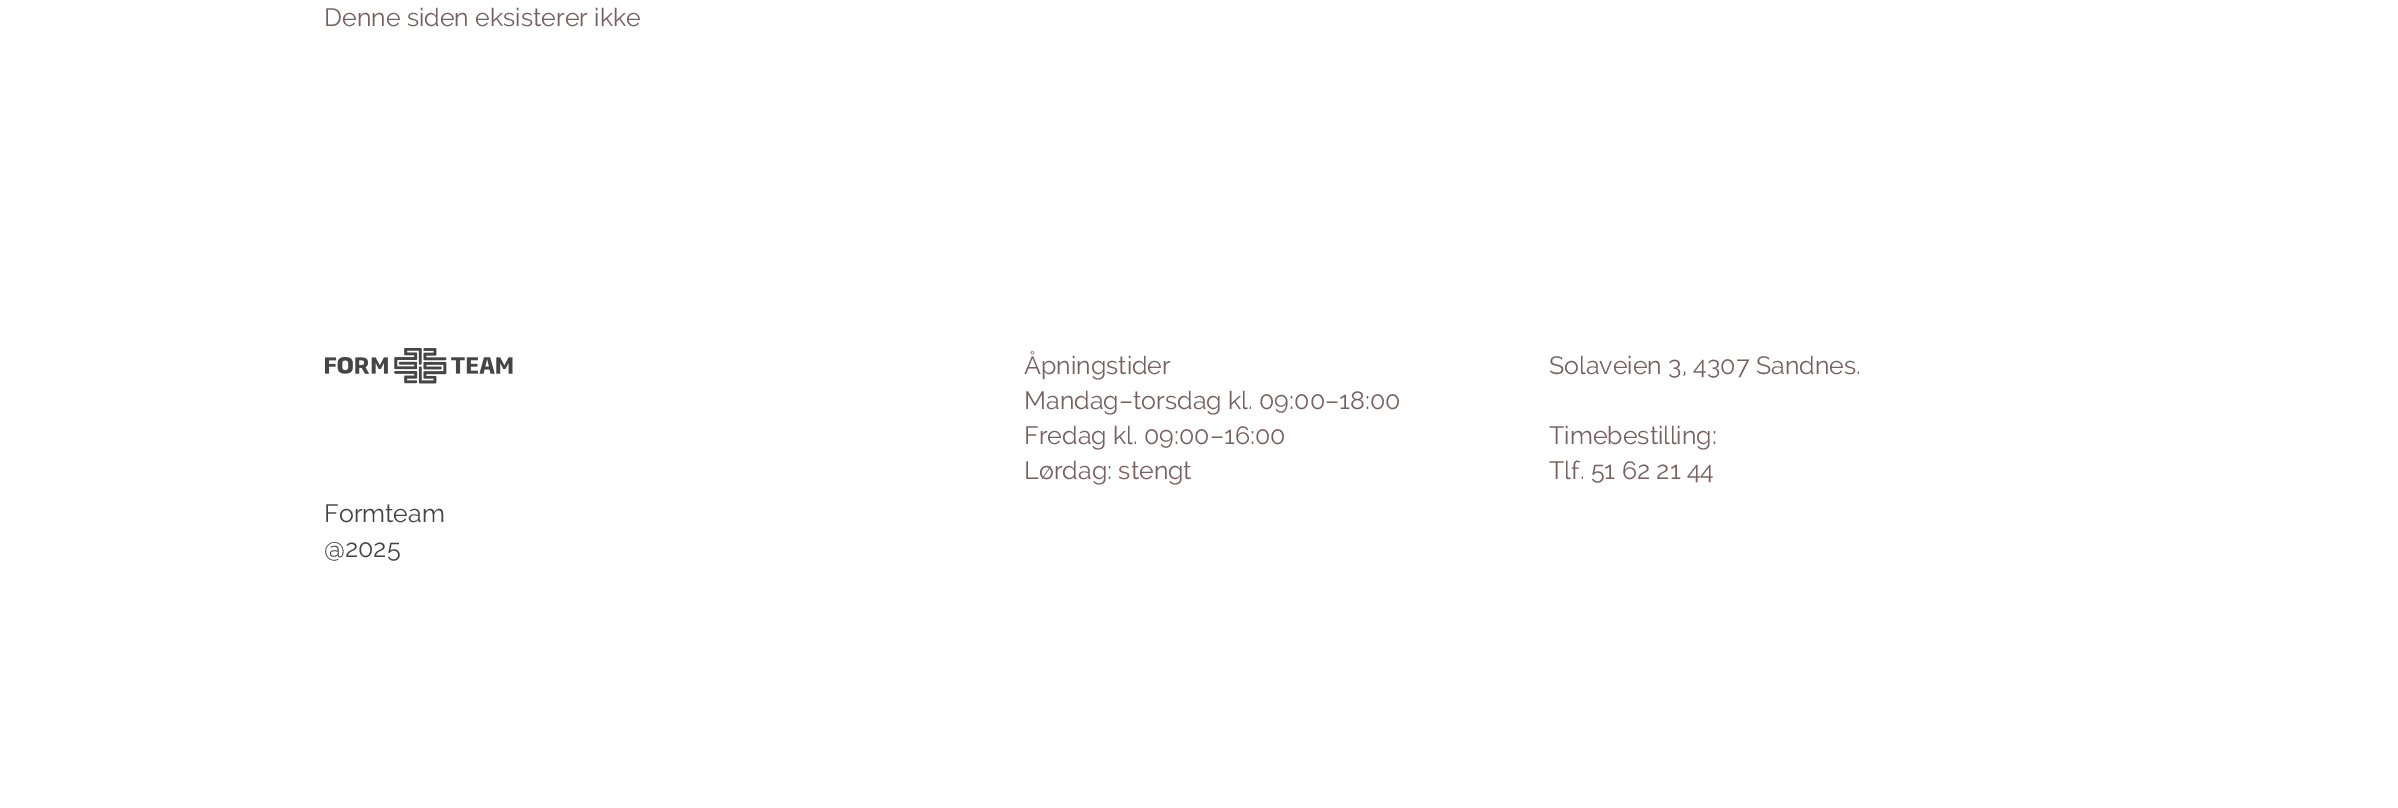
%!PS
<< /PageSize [2398 808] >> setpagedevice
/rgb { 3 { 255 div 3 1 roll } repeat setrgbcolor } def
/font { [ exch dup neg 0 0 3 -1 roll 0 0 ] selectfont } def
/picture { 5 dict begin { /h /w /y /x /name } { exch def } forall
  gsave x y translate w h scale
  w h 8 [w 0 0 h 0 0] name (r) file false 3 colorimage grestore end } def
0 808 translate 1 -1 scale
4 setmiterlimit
255 255 255 rgb
0 0 2398 808 rectfill
(img/1.rgb) 325 348 188 36 picture
/Raleway-Regular 25 font
118 97 96 rgb
[
  [(Denne siden eksisterer ikke) 324 26]
  [(Åpningstider) 1024 374]
  [(Mandag–torsdag kl. 09:00–18:00) 1024 409]
  [(Fredag kl. 09:00–16:00) 1024 444]
  [(Lørdag: stengt) 1024 479]
  [(Solaveien 3, 4307 Sandnes.) 1549 374]
  [(Timebestilling:) 1549 444]
  [(Tlf. 51 62 21 44) 1549 479]
] { aload pop moveto show } forall
68 68 68 rgb
324 522 moveto (Formteam) show
324 557 moveto (@2025) show
showpage
